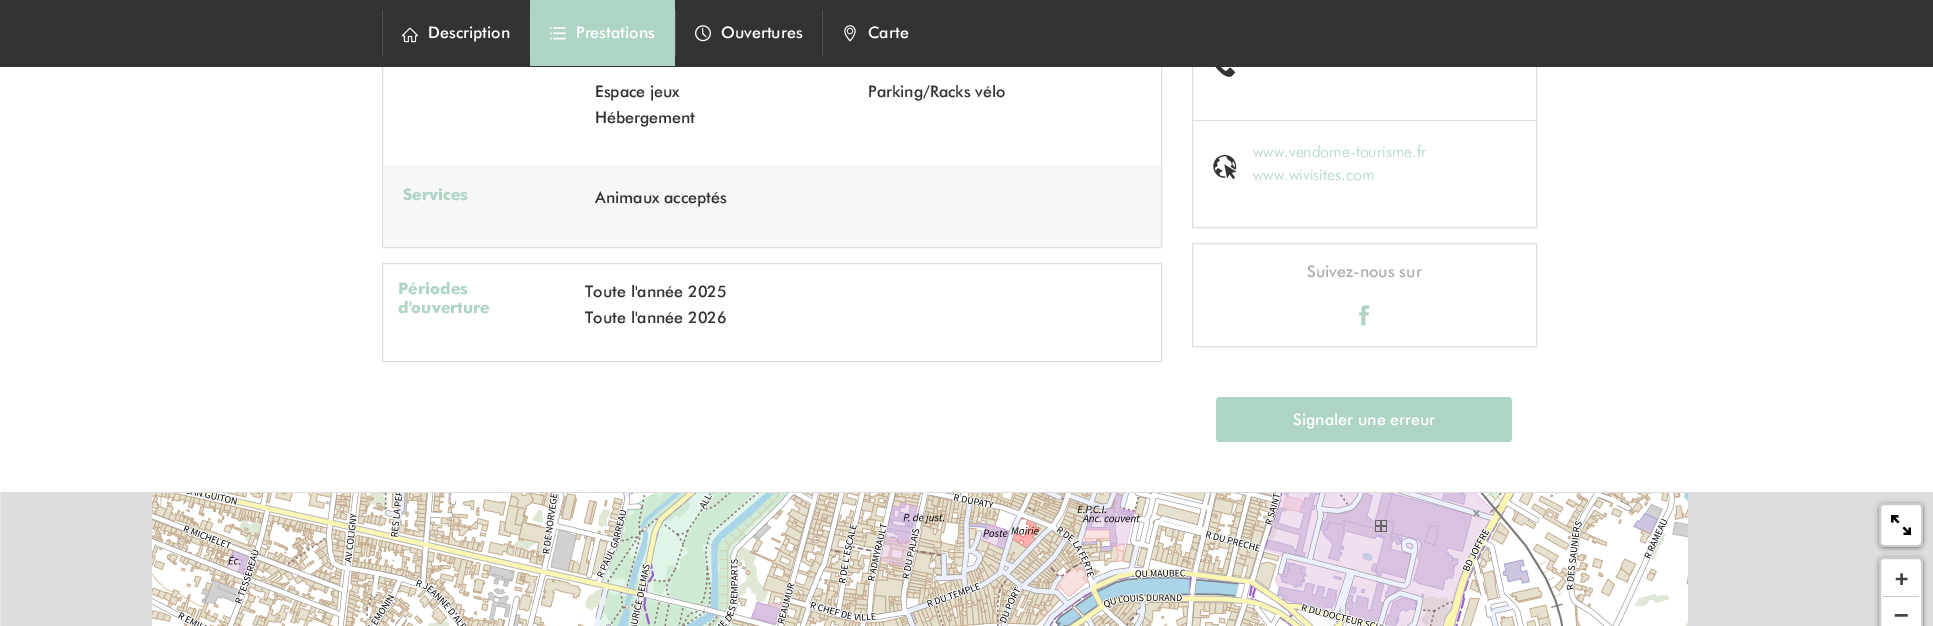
%!PS
<< /PageSize [1933 626] /PageUsesTransparency true >> setpagedevice
/rgb { 3 { 255 div 3 1 roll } repeat setrgbcolor } def
/font { [ exch dup neg 0 0 3 -1 roll 0 0 ] selectfont } def
/alpha { dup .setfillconstantalpha .setstrokeconstantalpha } def
/roundrect { 5 dict begin { /r /h /w /y /x } { exch def } forall
  x r add y moveto x w add y 2 copy h add r arct x w add y h add x 1 index r arct
  x y h add x y r arct x y 2 copy exch w add exch r arct closepath end } def
/shadow { 12 dict begin { /a /b /q /h /w /y /x } { exch def } forall gsave /was 0 def
  9 -2 -9 { dup b mul 4 div /e exch def 1 sub .425 mul 2.718 exch exp 1 add a .99 .min exch div /now exch def
    1 1 now sub 1 was sub div sub alpha /was now def
    w h .min e 2 mul add 0 gt { x e sub y e sub w e 2 mul add h e 2 mul add
      q e add b .6 mul add w h .min 2 div e add .min 0 .max roundrect fill } if } for grestore end } def
/picture { 5 dict begin { /h /w /y /x /name } { exch def } forall
  gsave x y translate w h scale
  w h 8 [w 0 0 h 0 0] name (r) file false 3 colorimage grestore end } def
0 .pushpdf14devicefilter
0 626 translate 1 -1 scale
4 setmiterlimit
255 255 255 rgb
0 0 1933 626 rectfill
221 221 221 rgb
382.5 -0.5 779 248 rectstroke
1192.5 -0.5 344 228 rectstroke
51 51 51 rgb
0 0 1933 67 rectfill
82 82 82 rgb
382 10 1 47 rectfill
(img/1.rgb) 402 27 16 16 picture
174 212 196 rgb
530 0 145 66 rectfill
186 218 205 rgb
530 10 1 46 rectfill
(img/2.rgb) 550 27 16 13 picture
82 82 82 rgb
675 10 1 46 rectfill
(img/3.rgb) 695 25 16 17 picture
822 10 1 46 rectfill
(img/4.rgb) 844 25 12 17 picture
247 247 247 rgb
383 244 778 3 rectfill
383 165 moveto 1161 165 lineto 1161 244 lineto 1161 245.5 1159.5 247 1158 247 curveto 386 247 lineto 384.5 247 383 245.5 383 244 curveto closepath fill
221 221 221 rgb
382.5 263.5 779 98 rectstroke
(img/5.rgb) 1215 67 21 10 picture
1193 120 343 1 rectfill
(img/6.rgb) 1213 155 24 24 picture
1192.5 243.5 344 103 rectstroke
(img/7.rgb) 1359 305 11 21 picture
174 212 196 rgb
1216 397 296 45 4 roundrect fill
[
  [0 492 1933 1 221 221 221]
  [0 492 1 134 232 232 232]
  [1 493 1932 133 221 221 221]
] { aload pop rgb rectfill } forall
(img/8.rgb) 152 493 256 133 picture
(img/9.rgb) 408 493 256 133 picture
(img/10.rgb) 664 493 256 133 picture
(img/11.rgb) 920 493 256 133 picture
(img/12.rgb) 1176 493 256 133 picture
(img/13.rgb) 1432 493 256 133 picture
0 0 0 rgb
1879 504 44 44 5 2.5 0.4 shadow
255 255 255 rgb
1879 503 44 44 5 roundrect fill
0.2 alpha
0 0 0 rgb
2 setlinewidth
1880 504 42 42 4 roundrect stroke
1 alpha
(img/14.rgb) 1891 515 20 20 picture
1879 558 44 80 5 2.5 0.4 shadow
255 255 255 rgb
1879 557 44 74 5 roundrect fill
0.2 alpha
0 0 0 rgb
1880 558 42 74 4 roundrect stroke
1 alpha
204 204 204 rgb
1883 596 36 1 rectfill
/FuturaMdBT-Medium 16 font
255 255 255 rgb
[
  [(Description) 428 38]
  [(Prestations) 576 38]
  [(Ouvertures) 721 38]
  [(Carte) 868 38]
] { aload pop moveto show } forall
51 51 51 rgb
[
  [(Espace jeux) 595 97]
  [(Hébergement) 595 123]
  [(Parking/Racks vélo) 868 97]
] { aload pop moveto show } forall
/FuturaMdBT-Bold 16 font
174 212 196 rgb
403 200 moveto (Services) show
/FuturaMdBT-Medium 16 font
51 51 51 rgb
595 203 moveto (Animaux acceptés) show
/FuturaMdBT-Bold 16 font
174 212 196 rgb
398 294 moveto (Périodes) show
398 313 moveto (d'ouverture) show
/FuturaMdBT-Medium 16 font
51 51 51 rgb
585 297 moveto (Toute l'année 2025) show
585 323 moveto (Toute l'année 2026) show
/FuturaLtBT-Light 16 font
174 212 196 rgb
1253 157 moveto (www.vendome-tourisme.fr) show
1253 180 moveto (www.wivisites.com) show
/FuturaMdBT-Medium 16 font
173 173 173 rgb
1307 277 moveto (Suivez-nous sur) show
255 255 255 rgb
1293 425 moveto (Signaler une erreur) show
/DejaVuSansMono-Bold 22 font
71 67 67 rgb
1895 586 moveto (+) show
/DejaVuSansMono-Bold 24 font
1894 623 moveto (−) show
.poppdf14devicefilter showpage
